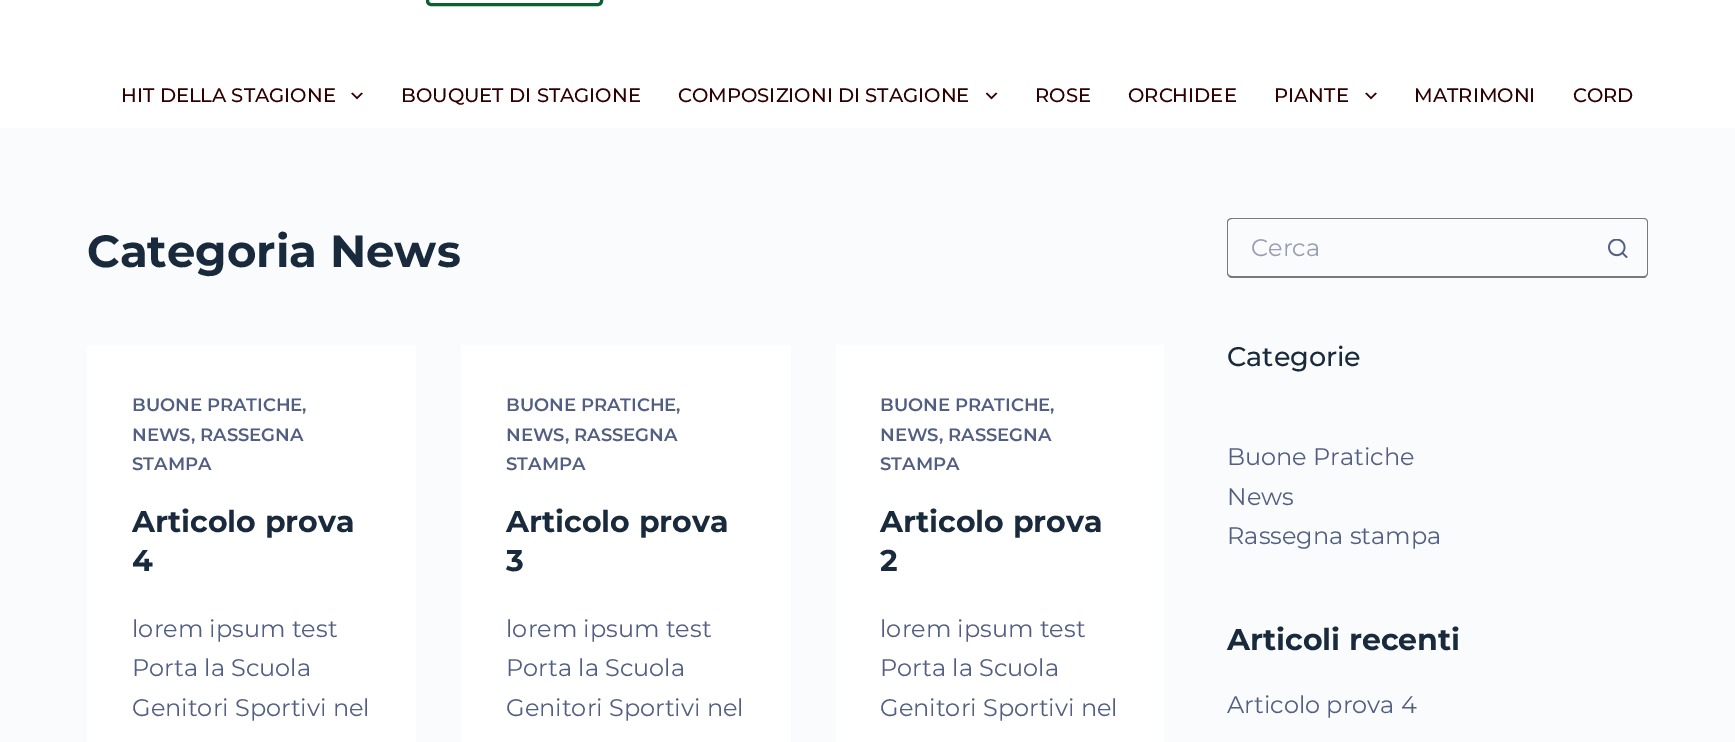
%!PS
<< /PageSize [1735 742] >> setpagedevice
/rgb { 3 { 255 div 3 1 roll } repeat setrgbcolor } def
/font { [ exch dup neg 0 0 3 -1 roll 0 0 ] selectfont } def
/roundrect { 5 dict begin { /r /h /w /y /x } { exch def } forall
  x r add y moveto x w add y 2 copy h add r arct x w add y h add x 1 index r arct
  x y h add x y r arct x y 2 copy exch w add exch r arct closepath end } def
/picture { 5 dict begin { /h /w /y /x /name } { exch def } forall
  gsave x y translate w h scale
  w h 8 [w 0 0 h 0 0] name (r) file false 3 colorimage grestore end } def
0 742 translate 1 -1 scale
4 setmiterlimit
250 251 252 rgb
0 0 1735 742 rectfill
255 255 255 rgb
0 0 1735 128 rectfill
9 97 50 rgb
3 setlinewidth
427.5 -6.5 174 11 3.5 roundrect stroke
(img/1.rgb) 351 92 12 8 picture
(img/2.rgb) 986 92 12 8 picture
(img/1.rgb) 1365 92 12 8 picture
[
  [87 345 329 397 255 255 255]
  [461 345 330 397 255 255 255]
  [836 345 328 397 255 255 255]
] { aload pop rgb rectfill } forall
122 122 122 rgb
1232 218 moveto 1588 218 lineto 1588 278 lineto 1232 278 lineto 1229 278 1227 275 1227 273 curveto 1227 222 lineto 1227 220 1229 218 1232 218 curveto closepath 1232 219 moveto 1588 219 lineto 1588 276 lineto 1232 276 lineto 1230 276 1228 275 1228 273 curveto 1228 222 lineto 1228 220 1230 219 1232 219 curveto closepath eofill
1588 218 moveto 1644 218 lineto 1646 218 1648 220 1648 222 curveto 1648 273 lineto 1648 275 1646 278 1644 278 curveto 1588 278 lineto closepath 1588 219 moveto 1644 219 lineto 1646 219 1647 220 1647 222 curveto 1647 273 lineto 1647 275 1646 276 1644 276 curveto 1588 276 lineto closepath eofill
(img/3.rgb) 1608 239 20 19 picture
/Montserrat-Medium 19.5 font
46 0 0 rgb
[
  [(HIT DELLA STAGIONE) 121 102]
  [(BOUQUET DI STAGIONE) 401 102]
  [(COMPOSIZIONI DI STAGIONE) 678 102]
  [(ROSE) 1035 102]
  [(ORCHIDEE) 1128 102]
  [(PIANTE) 1274 102]
  [(MATRIMONI) 1414 102]
  [(CORD) 1573 102]
] { aload pop moveto show } forall
/Montserrat-Bold 45 font
25 42 61 rgb
87 267 moveto (Categoria News) show
/Montserrat-SemiBold 18 font
83 95 130 rgb
[
  [(BUONE PRATICHE,) 132 411]
  [(NEWS, RASSEGNA) 132 441]
  [(STAMPA) 132 470]
] { aload pop moveto show } forall
/Montserrat-Bold 30 font
25 42 61 rgb
132 532 moveto (Articolo prova) show
132 571 moveto (4) show
/Montserrat-Regular 24 font
83 95 130 rgb
[
  [(lorem ipsum test) 132 637]
  [(Porta la Scuola) 132 676]
  [(Genitori Sportivi nel) 132 716]
] { aload pop moveto show } forall
/Montserrat-SemiBold 18 font
[
  [(BUONE PRATICHE,) 506 411]
  [(NEWS, RASSEGNA) 506 441]
  [(STAMPA) 506 470]
] { aload pop moveto show } forall
/Montserrat-Bold 30 font
25 42 61 rgb
506 532 moveto (Articolo prova) show
506 571 moveto (3) show
/Montserrat-Regular 24 font
83 95 130 rgb
[
  [(lorem ipsum test) 506 637]
  [(Porta la Scuola) 506 676]
  [(Genitori Sportivi nel) 506 716]
] { aload pop moveto show } forall
/Montserrat-SemiBold 18 font
[
  [(BUONE PRATICHE,) 880 411]
  [(NEWS, RASSEGNA) 880 441]
  [(STAMPA) 880 470]
] { aload pop moveto show } forall
/Montserrat-Bold 30 font
25 42 61 rgb
880 532 moveto (Articolo prova) show
880 571 moveto (2) show
/Montserrat-Regular 24 font
83 95 130 rgb
[
  [(lorem ipsum test) 880 637]
  [(Porta la Scuola) 880 676]
  [(Genitori Sportivi nel) 880 716]
] { aload pop moveto show } forall
150 157 179 rgb
1251 256 moveto (Cerca) show
/Montserrat-Medium 27 font
25 42 61 rgb
1227 366 moveto (Categorie) show
/Montserrat-Regular 24 font
83 95 130 rgb
[
  [(Buone Pratiche) 1227 465]
  [(News) 1227 505]
  [(Rassegna stampa) 1227 544]
] { aload pop moveto show } forall
/Montserrat-Bold 30 font
25 42 61 rgb
1227 650 moveto (Articoli recenti) show
/Montserrat-Regular 24 font
83 95 130 rgb
1227 713 moveto (Articolo prova 4) show
showpage
